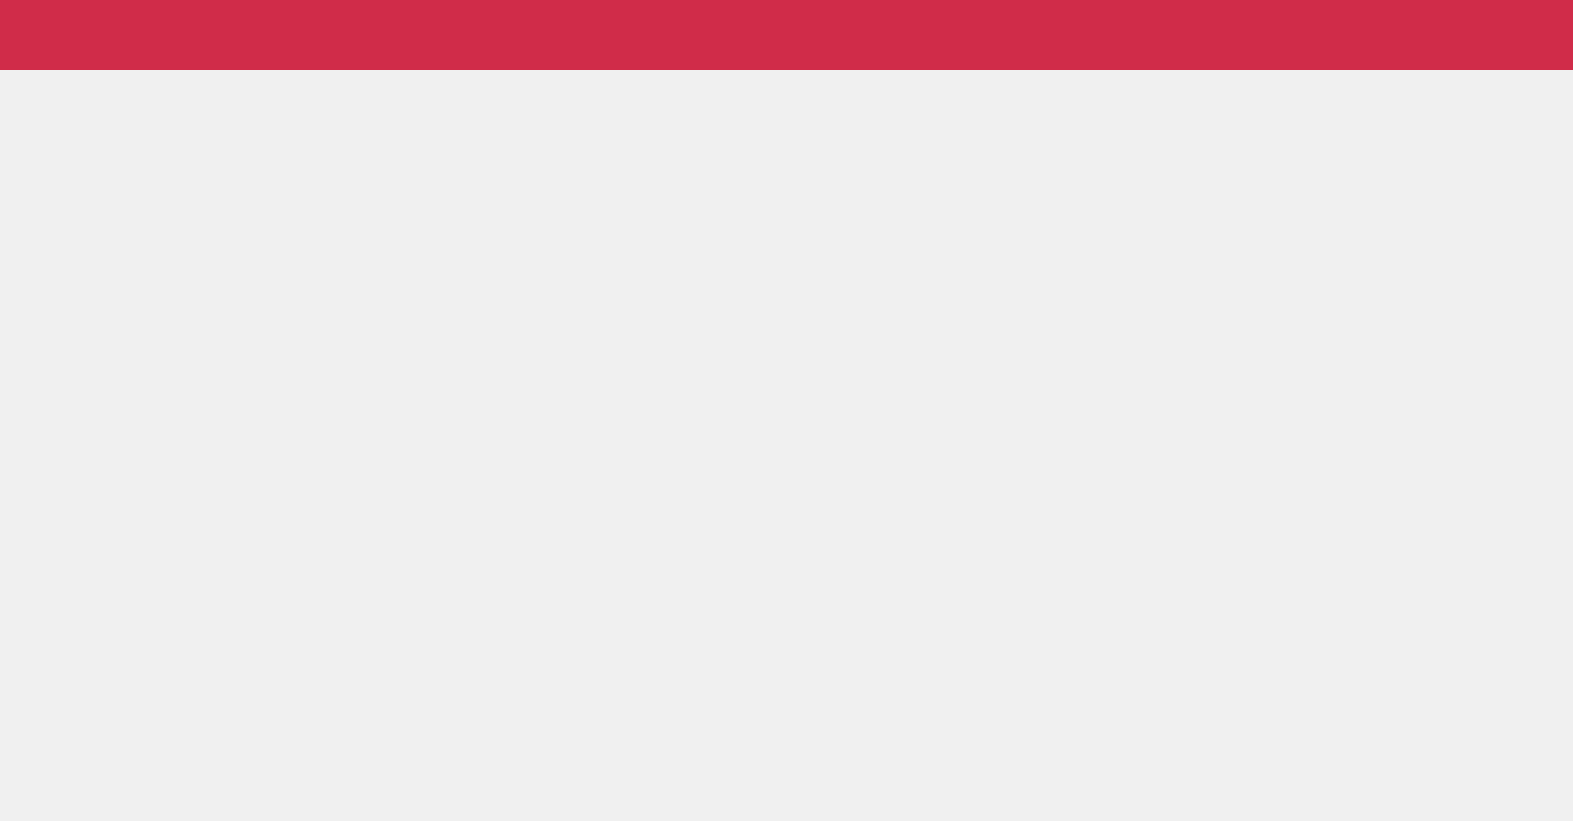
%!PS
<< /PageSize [1573 821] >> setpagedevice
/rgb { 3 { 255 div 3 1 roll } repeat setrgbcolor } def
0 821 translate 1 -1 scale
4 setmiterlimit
240 240 240 rgb
0 0 1573 821 rectfill
208 44 73 rgb
0 0 1573 70 rectfill
showpage
